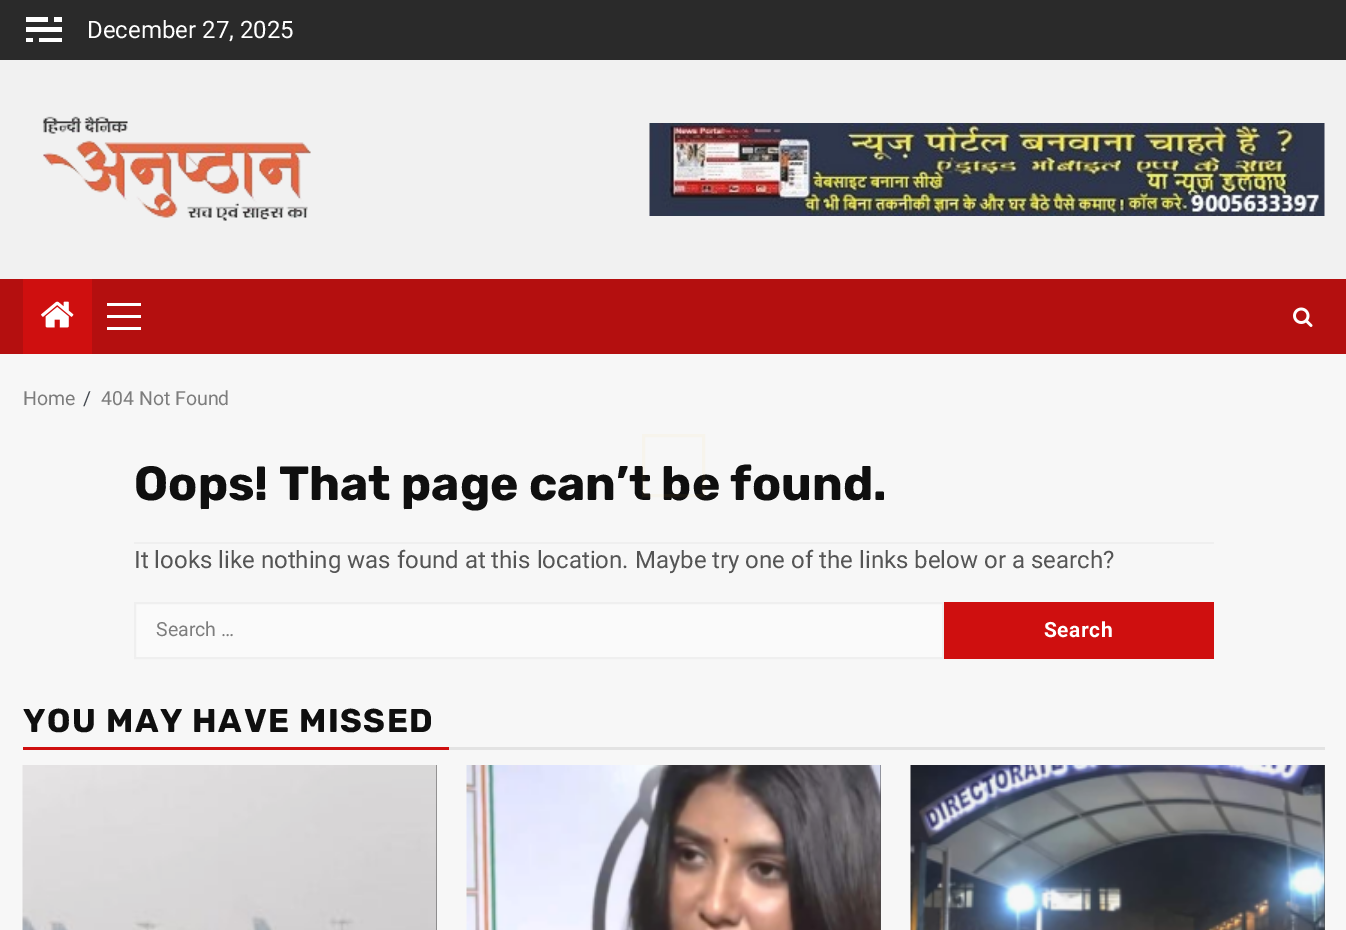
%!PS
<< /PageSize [1346 930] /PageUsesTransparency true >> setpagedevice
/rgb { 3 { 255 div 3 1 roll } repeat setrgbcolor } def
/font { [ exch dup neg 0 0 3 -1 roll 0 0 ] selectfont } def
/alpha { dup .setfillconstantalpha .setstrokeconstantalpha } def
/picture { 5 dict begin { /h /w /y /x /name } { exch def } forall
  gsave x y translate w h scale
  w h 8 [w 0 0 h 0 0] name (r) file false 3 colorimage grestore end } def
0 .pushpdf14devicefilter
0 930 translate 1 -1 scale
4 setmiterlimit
247 247 247 rgb
0 0 1346 930 rectfill
[
  [0 60 1346 219 241 241 241]
  [0 0 1346 60 42 42 42]
  [54 17 8 5 255 255 255]
  [26 17 22 5 255 255 255]
  [26 27 36 5 255 255 255]
  [39 38 23 4 255 255 255]
  [26 38 7 4 255 255 255]
] { aload pop rgb rectfill } forall
(img/1.rgb) 42 116 269 105 picture
(img/2.rgb) 649 123 676 93 picture
180 15 15 rgb
0 279 1346 75 rectfill
207 15 15 rgb
23 279 69 75 rectfill
(img/3.rgb) 41 301 33 27 picture
[
  [107 315 34 3 255 255 255]
  [107 303 34 3 255 255 255]
  [107 327 34 3 255 255 255]
] { aload pop rgb rectfill } forall
(img/4.rgb) 1293 307 20 20 picture
239 239 239 rgb
134 542 1080 2 rectfill
250 250 250 rgb
135 603 moveto 943 603 lineto 943 658 lineto 135 658 lineto closepath gsave fill grestore
239 239 239 rgb
2 setlinewidth
stroke
[
  [944 602 270 57 207 15 15]
  [23 747 426 3 207 15 15]
  [449 747 876 3 227 227 227]
  [436 765 1 165 75 75 75]
] { aload pop rgb rectfill } forall
(img/5.rgb) 22 765 415 165 picture
880 765 1 165 rectfill
(img/6.rgb) 466 765 415 165 picture
1324 765 1 165 rectfill
(img/7.rgb) 910 765 415 165 picture
/Roboto-Regular 24 font
255 255 255 rgb
87 38 moveto (December 27, 2025) show
/Roboto-Regular 19.5 font
125 125 125 rgb
23 405 moveto (Home) show
69 74 81 rgb
83 405 moveto (/) show
125 125 125 rgb
101 405 moveto (404 Not Found) show
/Rubik-Bold 48 font
15 15 15 rgb
134 500 moveto (Oops! That page can’t be found.) show
/Roboto-Regular 24 font
85 85 85 rgb
134 568 moveto (It looks like nothing was found at this location. Maybe try one of the links below or a search?) show
/Roboto-Regular 19.5 font
125 125 125 rgb
156 636 moveto (Search …) show
/Roboto-Bold 21 font
255 255 255 rgb
1044 637 moveto 0.5 0 (Search) ashow
/Rubik-Bold 33 font
15 15 15 rgb
23 732 moveto 1.5 0 (YOU MAY HAVE MISSED) ashow
0.06 alpha
255 191 63 rgb
3 setlinewidth
643.5 435.5 60 60 rectstroke
.poppdf14devicefilter showpage
